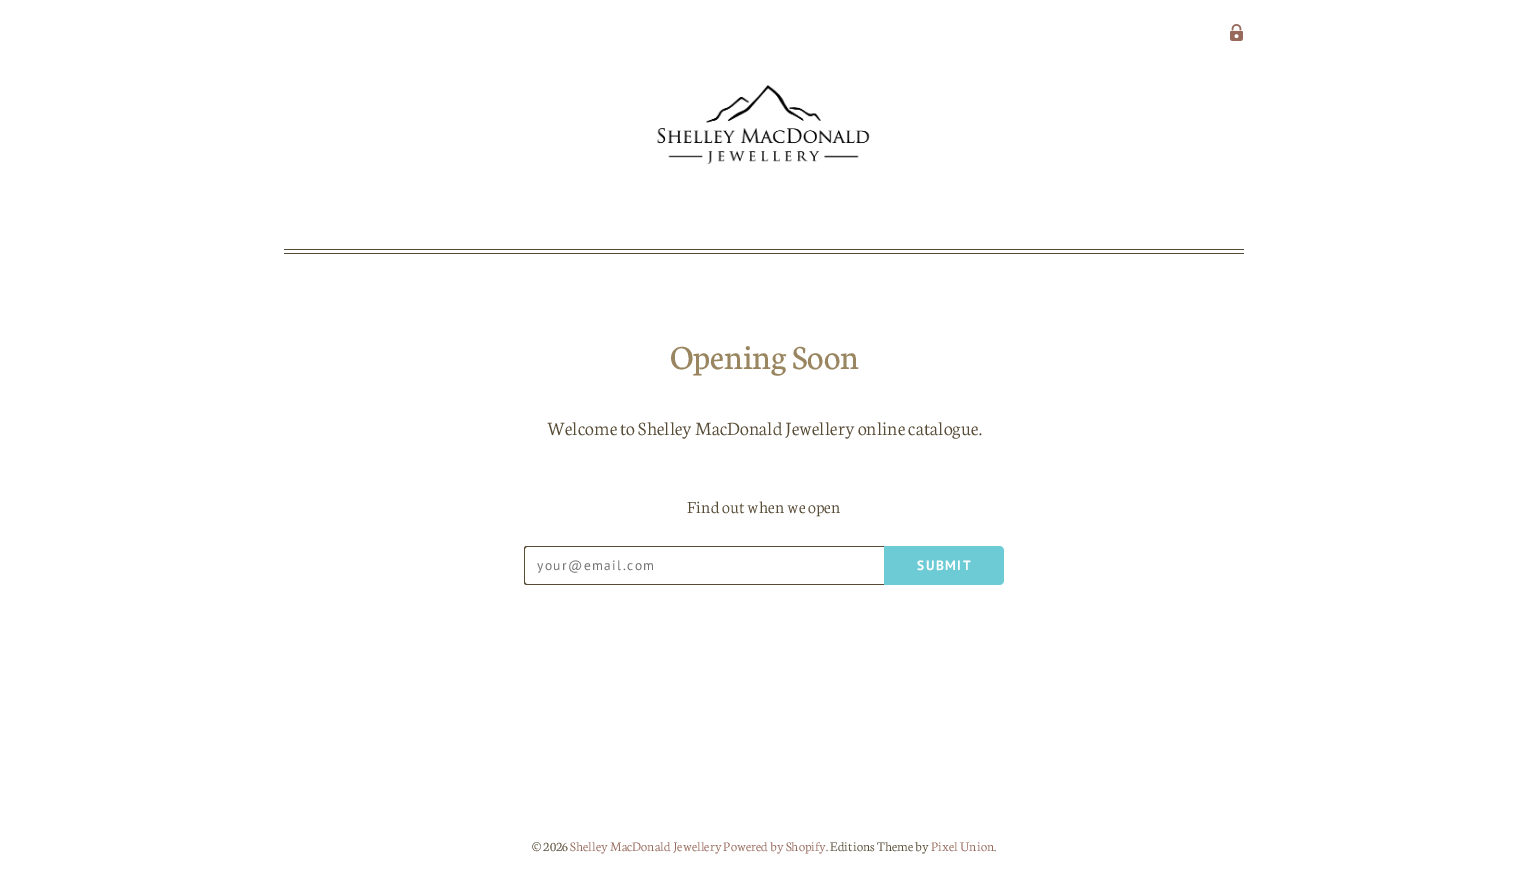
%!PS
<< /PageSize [1528 880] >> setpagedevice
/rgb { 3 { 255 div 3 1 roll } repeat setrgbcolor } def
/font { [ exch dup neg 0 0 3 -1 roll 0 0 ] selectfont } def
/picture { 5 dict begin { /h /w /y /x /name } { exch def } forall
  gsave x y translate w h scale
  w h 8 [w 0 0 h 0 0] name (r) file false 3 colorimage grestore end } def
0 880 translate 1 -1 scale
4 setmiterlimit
255 255 255 rgb
0 0 1528 880 rectfill
(img/1.rgb) 1230 24 13 17 picture
(img/2.rgb) 657 85 213 79 picture
87 75 54 rgb
284 253 960 1 rectfill
284 249 960 1 rectfill
527 546 moveto 884 546 lineto 884 585 lineto 527 585 lineto 525 585 524 584 524 582 curveto 524 549 lineto 524 547 525 546 527 546 curveto closepath 527 547 moveto 884 547 lineto 884 584 lineto 527 584 lineto 526 584 525 583 525 582 curveto 525 549 lineto 525 548 526 547 527 547 curveto closepath eofill
109 203 213 rgb
884 546 moveto 999 546 lineto 1002 546 1004 548 1004 551 curveto 1004 580 lineto 1004 583 1002 585 999 585 curveto 884 585 lineto closepath fill
/Neuton-Regular 36 font
153 133 95 rgb
670 369 moveto (Opening Soon) show
/Neuton-Light 20 font
87 75 54 rgb
547 435 moveto (Welcome to Shelley MacDonald Jewellery online catalogue.) show
/Neuton-Light 18 font
687 513 moveto (Find out when we open) show
/PTSans-Regular 13.5 font
117 117 117 rgb
537 570 moveto 1.4 0 (your@email.com) ashow
/PTSans-Bold 13.5 font
255 255 255 rgb
917 570 moveto 1.5 0 (SUBMIT) ashow
/Neuton-Light 14 font
87 75 54 rgb
532 851 moveto (© 2026) show
151 105 91 rgb
570 851 moveto (Shelley MacDonald Jewellery Powered by Shopify) show
87 75 54 rgb
826 851 moveto (. Editions Theme by) show
151 105 91 rgb
931 851 moveto (Pixel Union) show
87 75 54 rgb
994 851 moveto (.) show
showpage
